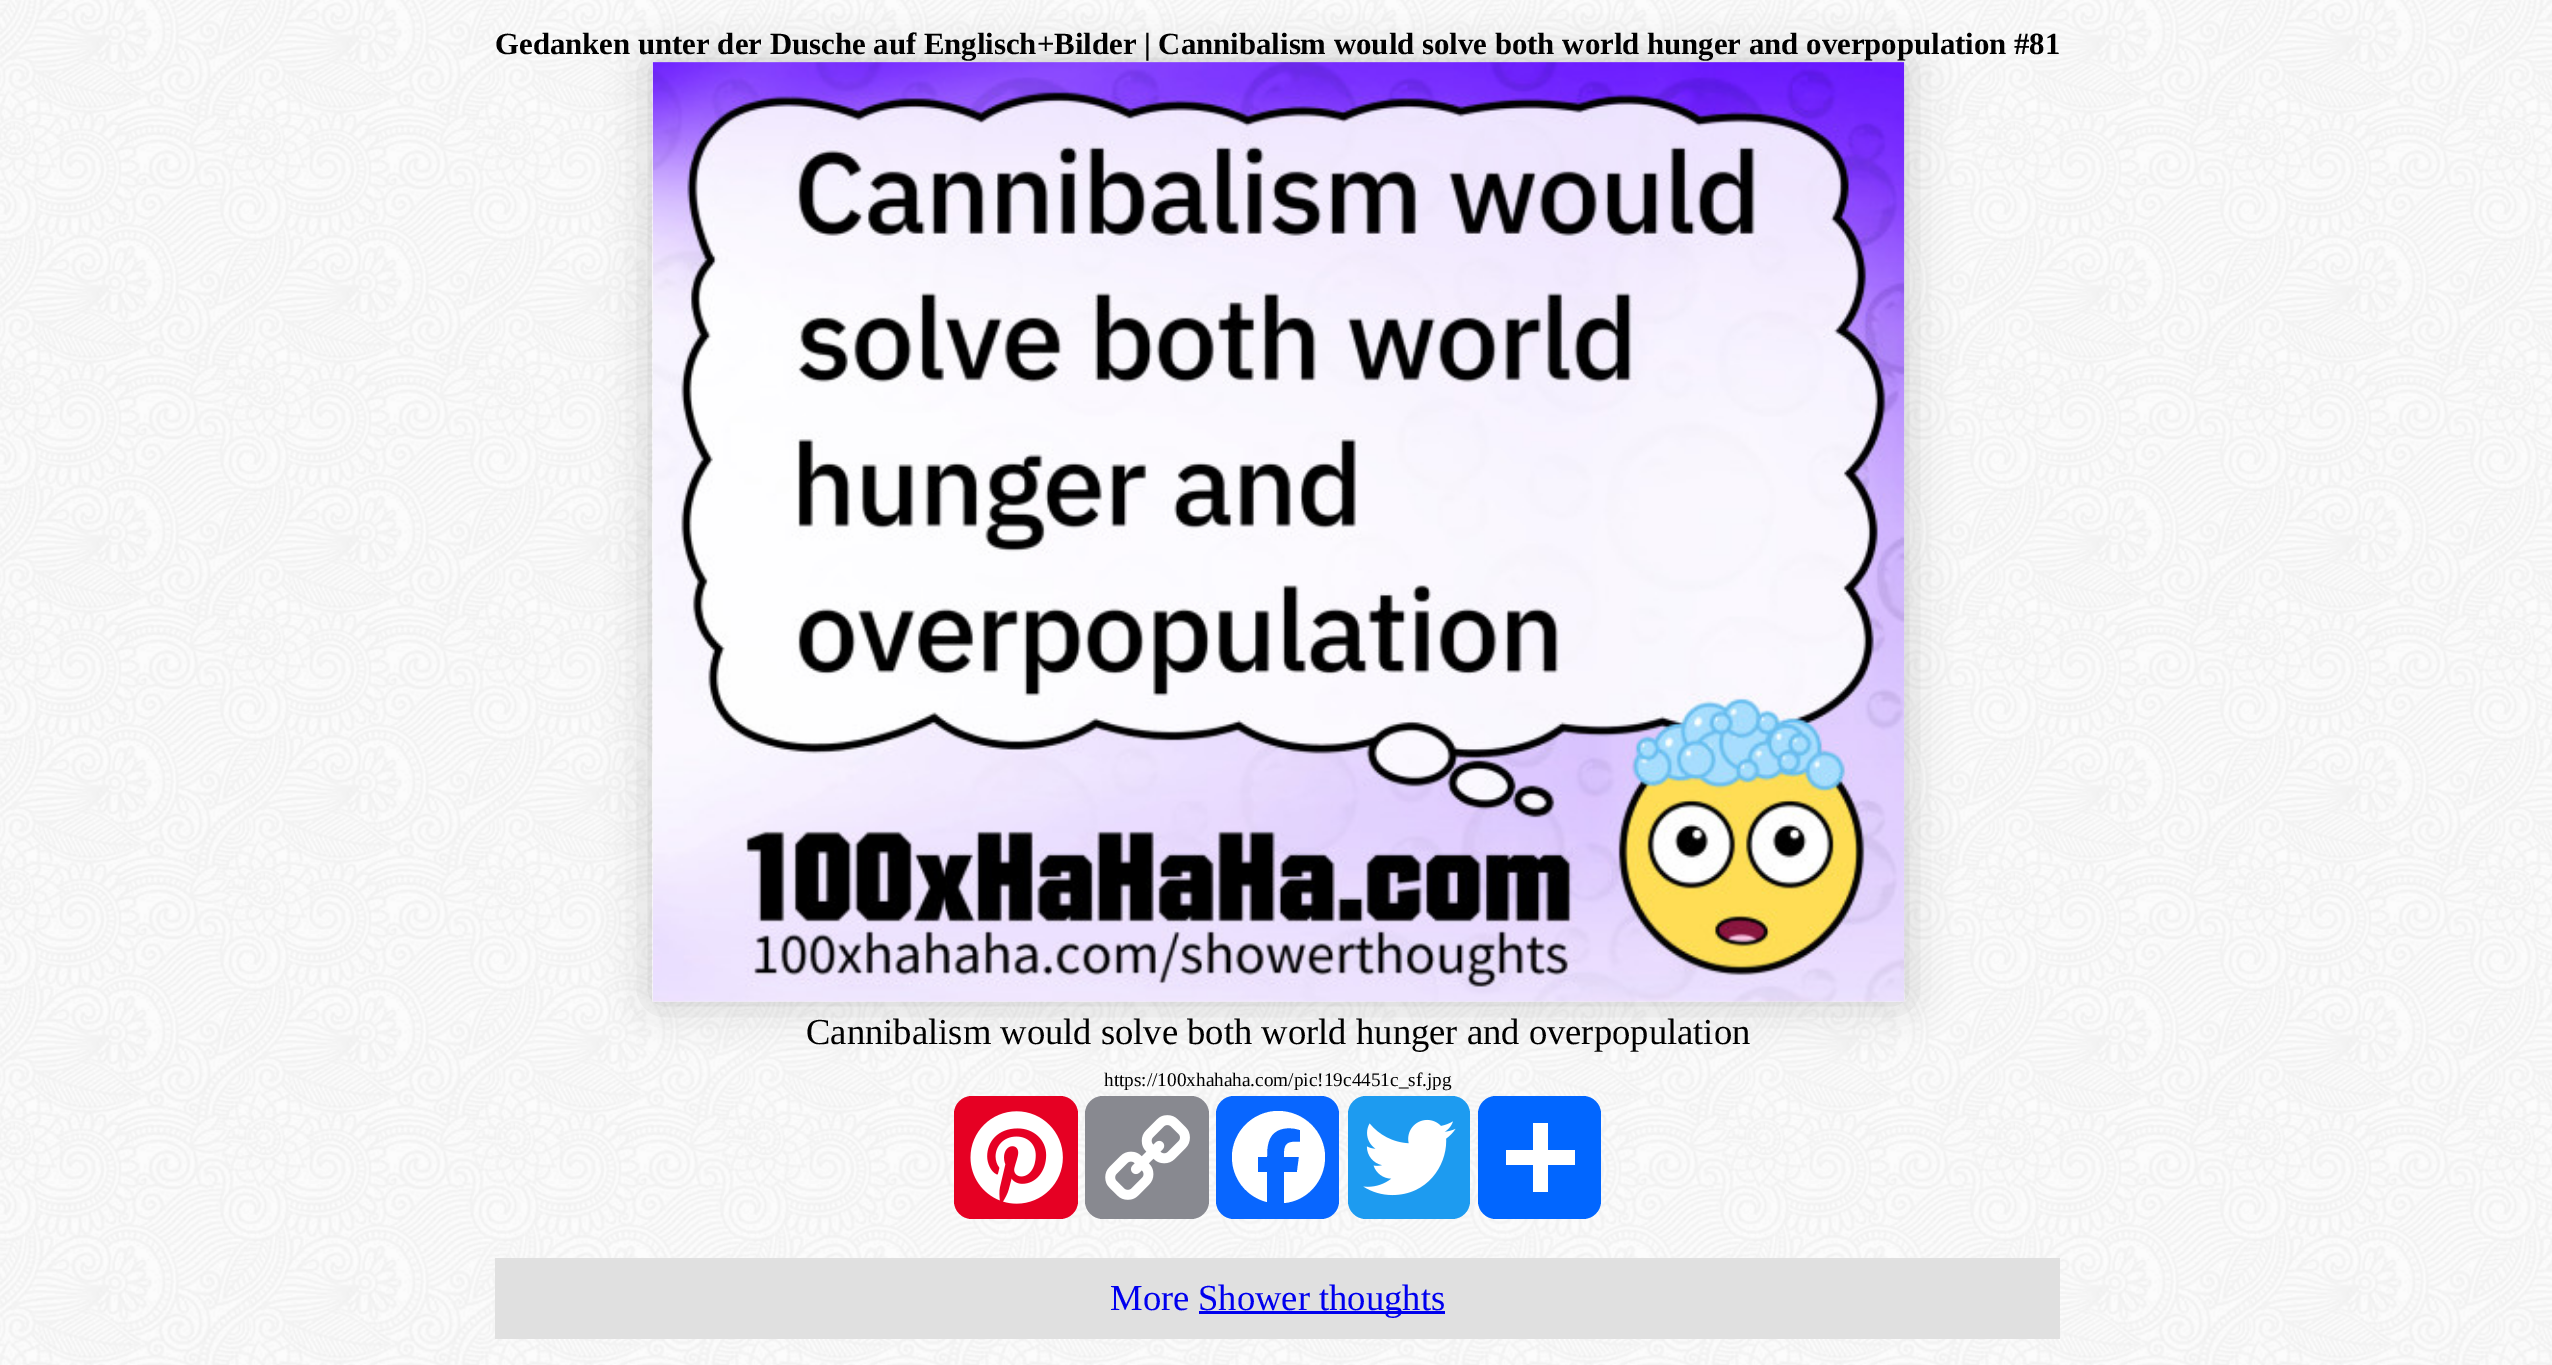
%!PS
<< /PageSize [2552 1365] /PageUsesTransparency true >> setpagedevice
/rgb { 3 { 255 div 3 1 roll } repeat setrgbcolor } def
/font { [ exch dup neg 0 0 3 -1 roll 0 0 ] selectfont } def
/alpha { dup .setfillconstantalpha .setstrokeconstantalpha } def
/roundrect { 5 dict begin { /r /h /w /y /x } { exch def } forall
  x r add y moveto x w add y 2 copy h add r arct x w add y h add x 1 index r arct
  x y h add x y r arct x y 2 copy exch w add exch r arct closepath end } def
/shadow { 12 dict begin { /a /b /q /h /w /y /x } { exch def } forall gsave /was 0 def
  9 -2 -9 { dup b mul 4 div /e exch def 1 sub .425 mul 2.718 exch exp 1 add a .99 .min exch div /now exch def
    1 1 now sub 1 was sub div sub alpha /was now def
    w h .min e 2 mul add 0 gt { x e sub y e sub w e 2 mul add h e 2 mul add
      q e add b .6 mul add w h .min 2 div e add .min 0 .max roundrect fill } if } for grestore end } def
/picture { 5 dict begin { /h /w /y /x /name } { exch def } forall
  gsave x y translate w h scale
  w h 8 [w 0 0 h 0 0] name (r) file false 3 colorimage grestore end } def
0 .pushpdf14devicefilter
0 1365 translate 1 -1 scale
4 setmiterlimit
255 255 255 rgb
0 0 2552 1365 rectfill
(img/1.rgb) 0 0 2552 1365 picture
0 0 0 rgb
653 63 1251 938 0 22 0.2 shadow
(img/2.rgb) 652 62 1253 940 picture
230 0 35 rgb
954 1096 124 123 18 roundrect fill
(img/3.rgb) 970 1111 93 93 picture
136 137 144 rgb
1085 1096 124 123 18 roundrect fill
(img/4.rgb) 1105 1115 85 85 picture
8 102 255 rgb
1216 1096 123 123 18 roundrect fill
255 255 255 rgb
1325 1157 moveto 1325 1132 1304 1111 1278 1111 curveto 1253 1111 1232 1132 1232 1157 curveto 1232 1179 1247 1197 1267 1202 curveto 1267 1172 lineto 1258 1172 lineto 1258 1157 lineto 1267 1157 lineto 1267 1152 1267 1146 1269 1141 curveto 1273 1128 1288 1126 1300 1130 curveto 1300 1142 lineto 1286 1141 1284 1144 1284 1157 curveto 1299 1157 lineto 1297 1172 lineto 1284 1172 lineto 1284 1203 lineto 1307 1201 1325 1181 1325 1157 curveto fill
29 155 240 rgb
1348 1096 122 123 18 roundrect fill
(img/5.rgb) 1363 1119 93 77 picture
1 102 255 rgb
1478 1096 123 123 18 roundrect fill
[
  [1533 1123 15 69 255 255 255]
  [1506 1150 69 15 255 255 255]
  [495 1258 1565 81 224 224 224]
  [1199 1311 246 3 0 0 238]
] { aload pop rgb rectfill } forall
/LiberationSerif-Bold 30.8 font
0 0 0 rgb
495 54 moveto (Gedanken unter der Dusche auf Englisch+Bilder | Cannibalism would solve both world hunger and overpopulation #81) show
/LiberationSerif-Regular 36.6 font
806 1044 moveto (Cannibalism would solve both world hunger and overpopulation) show
/LiberationSerif-Regular 19.25 font
1104 1086 moveto (https://100xhahaha.com/pic!19c4451c_sf.jpg) show
/LiberationSerif-Regular 36.6 font
0 0 238 rgb
1110 1310 moveto (More) show
1198 1310 moveto (Shower thoughts) show
.poppdf14devicefilter showpage
